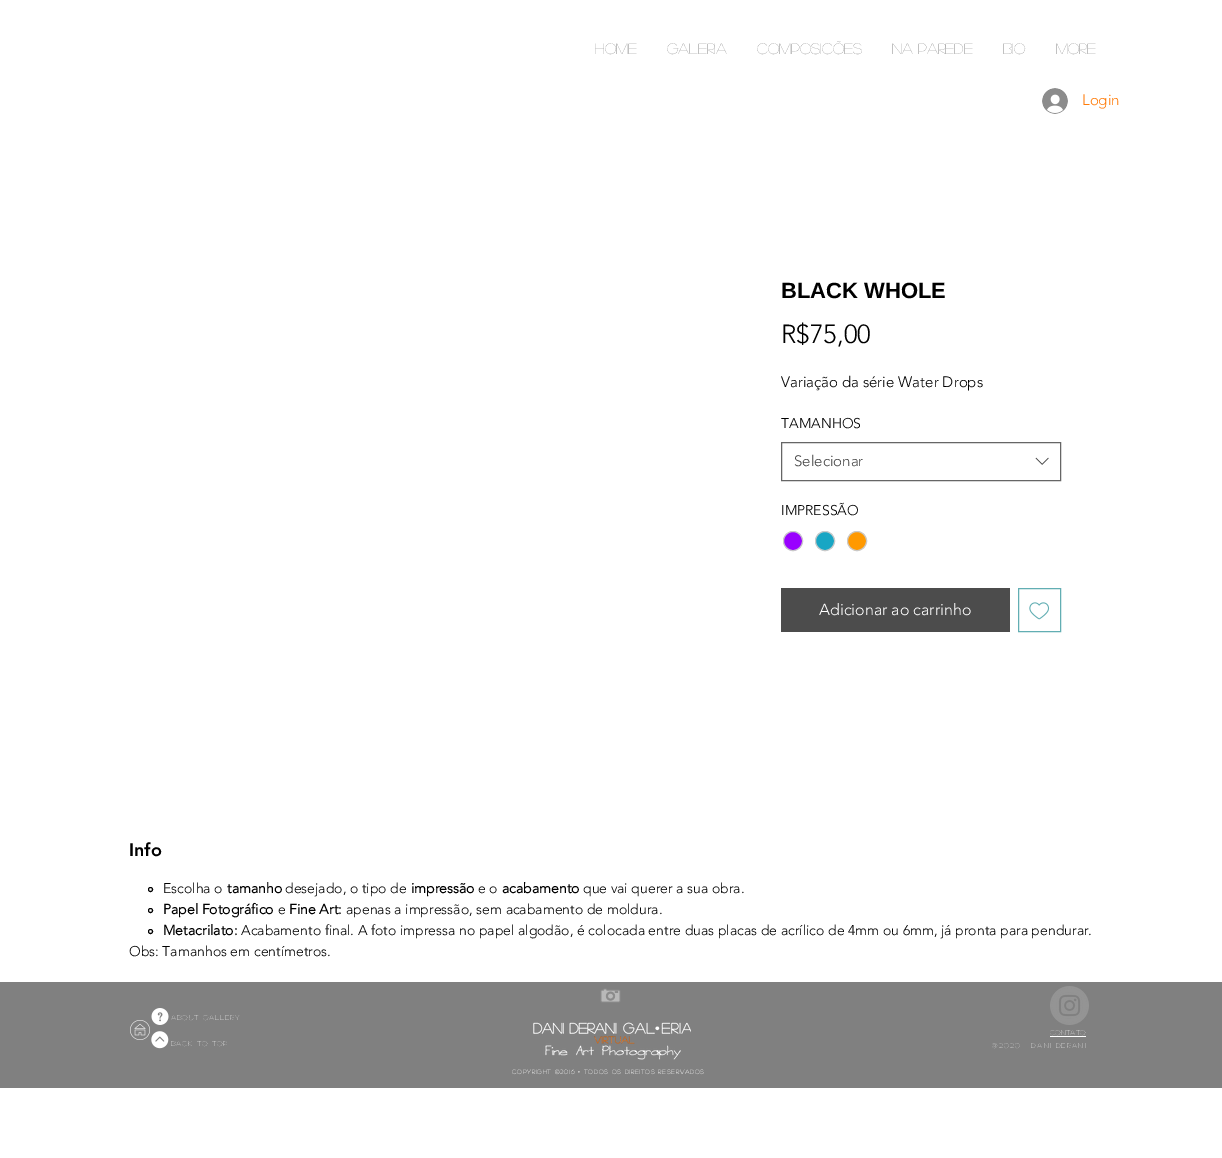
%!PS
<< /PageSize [1222 1158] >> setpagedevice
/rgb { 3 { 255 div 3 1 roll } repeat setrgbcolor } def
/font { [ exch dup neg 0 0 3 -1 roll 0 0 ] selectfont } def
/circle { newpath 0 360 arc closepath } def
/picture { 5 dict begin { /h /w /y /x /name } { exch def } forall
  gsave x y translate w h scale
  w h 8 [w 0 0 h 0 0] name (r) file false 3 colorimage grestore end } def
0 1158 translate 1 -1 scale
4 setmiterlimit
255 255 255 rgb
0 0 1222 1158 rectfill
102 102 102 rgb
781.5 442.5 279 38 rectstroke
(img/1.rgb) 1035 457 14 8 picture
153 0 255 rgb
793 541 9.5 circle gsave fill grestore
201 201 201 rgb
stroke
24 166 196 rgb
825 541 9.5 circle gsave fill grestore
201 201 201 rgb
stroke
255 153 0 rgb
857 541 9.5 circle gsave fill grestore
201 201 201 rgb
stroke
76 76 76 rgb
781 588 229 44 rectfill
98 174 179 rgb
1018.5 588.5 42 43 rectstroke
(img/2.rgb) 1029 602 21 18 picture
0 0 0 rgb
150.5 889.5 2 circle stroke
150.5 910.5 2 circle stroke
150.5 931.5 2 circle stroke
(img/3.rgb) 1042 88 26 26 picture
128 128 128 rgb
0 982 1222 106 rectfill
(img/4.rgb) 600 988 21 15 picture
(img/5.rgb) 1050 986 39 39 picture
(img/6.rgb) 151 1008 18 17 picture
(img/7.rgb) 130 1020 20 20 picture
(img/8.rgb) 151 1031 18 18 picture
(img/9.rgb) 533 1022 158 38 picture
255 255 255 rgb
1050 1036 36 1 rectfill
/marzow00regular-Regular 15 font
140 140 140 rgb
[
  [(HOME) 595 54]
  [(GALERIA) 667 54]
  [(COMPOSICÕES) 757 54]
  [(NA PAREDE) 892 54]
  [(BIO) 1003 54]
  [(More) 1056 54]
] { aload pop moveto show } forall
/LiberationSans-Bold 22 font
0 0 0 rgb
781 298 moveto (BLACK WHOLE) show
/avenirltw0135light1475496-Light 26 font
781 343 moveto (R$75,00) show
/avenirltw0135light1475496-Light 15 font
781 387 moveto (Variação da série Water Drops) show
/avenirltw0135light1475496-Light 14 font
781 428 moveto (TAMANHOS) show
/avenirltw0135light1475496-Light 15 font
68 68 68 rgb
794 466 moveto (Selecionar) show
/avenirltw0135light1475496-Light 14 font
0 0 0 rgb
781 515 moveto (IMPRESSÃO) show
/avenirltw0135light1475496-Light 16 font
255 255 255 rgb
819 615 moveto (Adicionar ao carrinho) show
/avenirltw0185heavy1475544-Black 18 font
0 0 0 rgb
129 856 moveto (Info) show
/avenirltw0135light1475496-Light 14 font
163 893 moveto (Escolha o) show
/avenirltw0135light1475496-Bold 14 font
227 893 moveto (tamanho) show
/avenirltw0135light1475496-Light 14 font
285 893 moveto (desejado, o tipo de) show
/avenirltw0135light1475496-Bold 14 font
411 893 moveto (impressão) show
/avenirltw0135light1475496-Light 14 font
478 893 moveto (e o) show
/avenirltw0135light1475496-Bold 14 font
502 893 moveto (acabamento) show
/avenirltw0135light1475496-Light 14 font
583 893 moveto (que vai querer a sua obra.) show
/avenirltw0135light1475496-Bold 14 font
163 914 moveto (Papel Fotográfico) show
/avenirltw0135light1475496-Light 14 font
278 914 moveto (e) show
/avenirltw0135light1475496-Bold 14 font
289 914 moveto (Fine Art:) show
/avenirltw0135light1475496-Light 14 font
346 914 moveto (apenas a impressão, sem acabamento de moldura.) show
/avenirltw0135light1475496-Bold 14 font
163 935 moveto (Metacrilato:) show
/avenirltw0135light1475496-Light 14 font
241 935 moveto (Acabamento final. A foto impressa no papel algodão, é colocada entre duas placas de acrílico de 4mm ou 6mm, já pronta para pendurar.) show
129 956 moveto (Obs: Tamanhos em centímetros.) show
/avenirltw0135light1475496-Light 15 font
255 124 9 rgb
1082 105 moveto (Login) show
/marzow00regular-Regular 7 font
255 255 255 rgb
171 1020 moveto 1 0 (ABOUT GALLERY) ashow
171 1046 moveto 1 0 (Back to Top) ashow
1050 1035 moveto 0.25 0 (contato) ashow
992 1048 moveto 1.4 0 (@2020 | Dani Derani) ashow
/marzow00regular-Bold 6 font
512 1074 moveto 0.9 0 (Copyright ©2016 • Todos os Direitos Reservados) ashow
showpage
